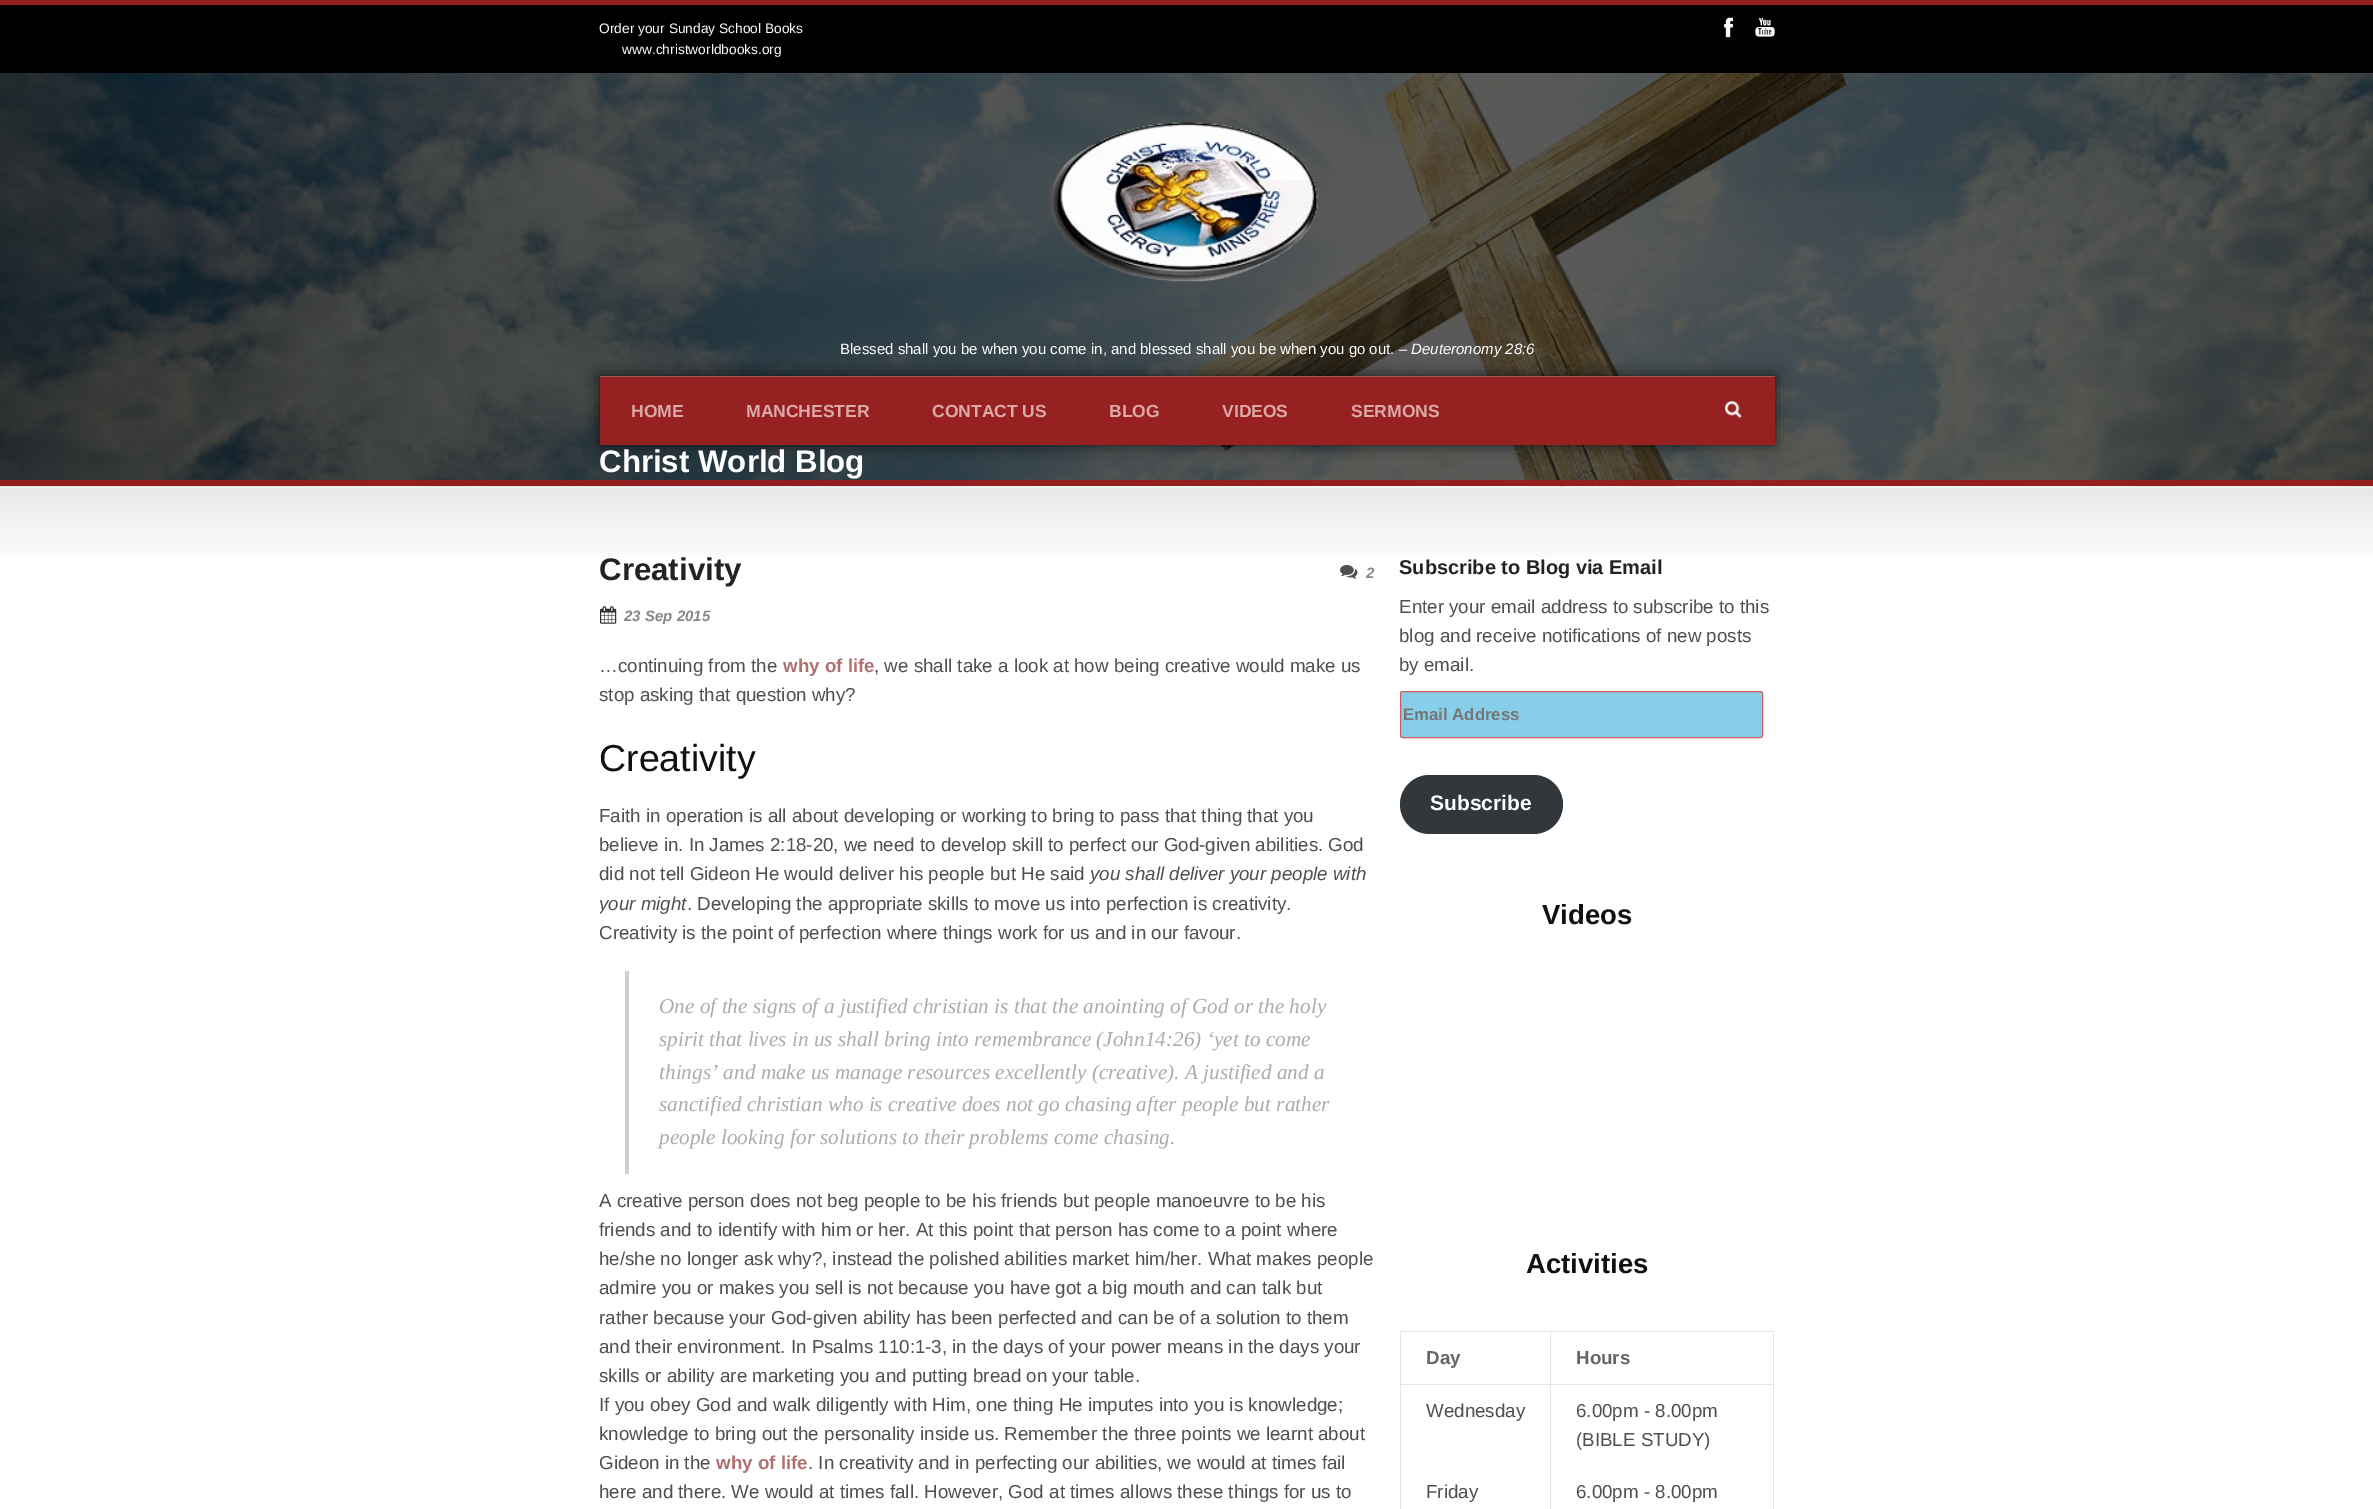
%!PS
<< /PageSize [2373 1509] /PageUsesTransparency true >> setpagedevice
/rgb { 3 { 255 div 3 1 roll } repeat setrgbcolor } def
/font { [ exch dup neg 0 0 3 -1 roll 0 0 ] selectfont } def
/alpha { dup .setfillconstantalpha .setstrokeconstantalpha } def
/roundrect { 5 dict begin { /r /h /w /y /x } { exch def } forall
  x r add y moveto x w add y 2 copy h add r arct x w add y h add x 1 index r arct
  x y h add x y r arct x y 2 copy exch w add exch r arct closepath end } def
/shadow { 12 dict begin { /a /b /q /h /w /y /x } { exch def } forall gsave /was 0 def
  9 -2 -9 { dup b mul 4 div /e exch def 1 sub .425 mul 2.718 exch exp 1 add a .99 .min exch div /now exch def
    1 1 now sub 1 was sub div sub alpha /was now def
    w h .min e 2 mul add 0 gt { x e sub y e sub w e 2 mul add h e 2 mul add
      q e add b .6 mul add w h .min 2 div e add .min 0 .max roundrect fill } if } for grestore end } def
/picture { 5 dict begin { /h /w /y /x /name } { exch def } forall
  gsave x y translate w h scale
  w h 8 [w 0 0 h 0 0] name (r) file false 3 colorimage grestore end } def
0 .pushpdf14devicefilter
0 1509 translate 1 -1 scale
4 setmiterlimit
255 255 255 rgb
0 0 2373 1509 rectfill
0 0 0 rgb
0 5 2373 68 rectfill
147 31 31 rgb
0 0 2373 5 rectfill
(img/1.rgb) 1723 17 10 21 picture
(img/2.rgb) 1755 18 20 19 picture
(img/3.rgb) 0 73 2373 414 picture
(img/4.rgb) 1051 122 267 160 picture
0 0 0 rgb
600 376 1175 69 0 7.5 0.7 shadow
151 33 33 rgb
600 377 1175 68 rectfill
160 88 88 rgb
600 376 1175 1 rectfill
(img/5.rgb) 1725 401 17 17 picture
147 31 31 rgb
0 480 2373 6 rectfill
(img/6.rgb) 0 487 2373 70 picture
(img/7.rgb) 1340 565 18 14 picture
(img/8.rgb) 600 606 17 18 picture
207 207 207 rgb
625 971 4 203 rectfill
135 206 235 rgb
1400.5 691.5 362 46 2 roundrect gsave fill grestore
205 92 92 rgb
stroke
50 55 60 rgb
1400 775 163 59 29.5 roundrect fill
[
  [1400 1331 374 1 229 229 229]
  [1773 1331 1 178 229 229 229]
  [1400 1331 1 178 229 229 229]
  [1550 1384 1 125 229 229 229]
  [1550 1384 224 1 229 229 229]
  [1550 1331 1 54 229 229 229]
  [1400 1384 151 1 229 229 229]
] { aload pop rgb rectfill } forall
/LiberationSans-Regular 13.75 font
255 255 255 rgb
599 33 moveto (Order your Sunday School Books) show
622 54 moveto (www.christworldbooks.org) show
/LiberationSans-Regular 15 font
840 354 moveto (Blessed shall you be when you come in, and blessed shall you be when you go out. –) show
/LiberationSans-Italic 15 font
1411 354 moveto (Deuteronomy 28:6) show
/LiberationSans-Bold 17.5 font
220 168 168 rgb
[
  [(HOME) 631 417]
  [(MANCHESTER) 746 417]
  [(CONTACT US) 932 417]
  [(BLOG) 1109 417]
  [(VIDEOS) 1222 417]
  [(SERMONS) 1351 417]
] { aload pop moveto show } forall
/LiberationSans-Bold 31.25 font
255 255 255 rgb
599 472 moveto (Christ World Blog) show
35 35 35 rgb
599 580 moveto (Creativity) show
/LiberationSans-BoldItalic 15 font
135 135 135 rgb
1366 578 moveto (2) show
624 621 moveto (23 Sep 2015) show
/LiberationSans-Regular 18.75 font
80 80 80 rgb
599 672 moveto (…continuing from the) show
/LiberationSans-Bold 18.75 font
175 112 112 rgb
783 672 moveto (why of life) show
/LiberationSans-Regular 18.75 font
80 80 80 rgb
874 672 moveto (, we shall take a look at how being creative would make us) show
599 701 moveto (stop asking that question why?) show
/LiberationSans-Regular 37.5 font
17 17 17 rgb
599 771 moveto (Creativity) show
/LiberationSans-Regular 18.75 font
80 80 80 rgb
[
  [(Faith in operation is all about developing or working to bring to pass that thing that you) 599 822]
  [(believe in. In James 2:18-20, we need to develop skill to perfect our God-given abilities. God) 599 851]
  [(did not tell Gideon He would deliver his people but He said) 599 880]
] { aload pop moveto show } forall
/LiberationSans-Italic 18.75 font
1090 880 moveto (you shall deliver your people with) show
gsave
600 549 775 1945 rectclip
599 910 moveto (your might) show
grestore
/LiberationSans-Regular 18.75 font
687 910 moveto (. Developing the appropriate skills to move us into perfection is creativity.) show
599 939 moveto (Creativity is the point of perfection where things work for us and in our favour.) show
/LiberationSerif-Italic 21.25 font
171 171 171 rgb
[
  [(One of the signs of a justified christian is that the anointing of God or the holy) 659 1013]
  [(spirit that lives in us shall bring into remembrance \(John14:26\) ‘yet to come) 659 1046]
  [(things’ and make us manage resources excellently \(creative\). A justified and a) 659 1079]
  [(sanctified christian who is creative does not go chasing after people but rather) 659 1111]
  [(people looking for solutions to their problems come chasing.) 659 1144]
] { aload pop moveto show } forall
/LiberationSans-Regular 18.75 font
80 80 80 rgb
[
  [(A creative person does not beg people to be his friends but people manoeuvre to be his) 599 1207]
  [(friends and to identify with him or her. At this point that person has come to a point where) 599 1236]
  [(he/she no longer ask why?, instead the polished abilities market him/her. What makes people) 599 1265]
  [(admire you or makes you sell is not because you have got a big mouth and can talk but) 599 1294]
  [(rather because your God-given ability has been perfected and can be of a solution to them) 599 1324]
  [(and their environment. In Psalms 110:1-3, in the days of your power means in the days your) 599 1353]
  [(skills or ability are marketing you and putting bread on your table.) 599 1382]
  [(If you obey God and walk diligently with Him, one thing He imputes into you is knowledge;) 599 1411]
  [(knowledge to bring out the personality inside us. Remember the three points we learnt about) 599 1440]
  [(Gideon in the) 599 1469]
] { aload pop moveto show } forall
/LiberationSans-Bold 18.75 font
175 112 112 rgb
716 1469 moveto (why of life) show
/LiberationSans-Regular 18.75 font
80 80 80 rgb
808 1469 moveto (. In creativity and in perfecting our abilities, we would at times fail) show
599 1498 moveto (here and there. We would at times fall. However, God at times allows these things for us to) show
/LiberationSans-Bold 20 font
35 35 35 rgb
1399 574 moveto (Subscribe to Blog via Email) show
/LiberationSans-Regular 18.75 font
80 80 80 rgb
[
  [(Enter your email address to subscribe to this) 1399 613]
  [(blog and receive notifications of new posts) 1399 642]
  [(by email.) 1399 671]
] { aload pop moveto show } forall
/LiberationSans-Bold 16.75 font
117 117 117 rgb
1403 720 moveto (Email Address) show
/LiberationSans-Bold 21 font
255 255 255 rgb
1430 810 moveto (Subscribe) show
/LiberationSans-Bold 27.5 font
17 17 17 rgb
1542 924 moveto (Videos) show
1526 1273 moveto (Activities) show
/LiberationSans-Bold 18.75 font
102 102 102 rgb
1426 1364 moveto (Day) show
1576 1364 moveto (Hours) show
/LiberationSans-Regular 18.75 font
80 80 80 rgb
[
  [(Wednesday) 1426 1417]
  [(6.00pm - 8.00pm) 1576 1417]
  [(\(BIBLE STUDY\)) 1576 1446]
  [(Friday) 1426 1498]
  [(6.00pm - 8.00pm) 1576 1498]
] { aload pop moveto show } forall
.poppdf14devicefilter showpage
